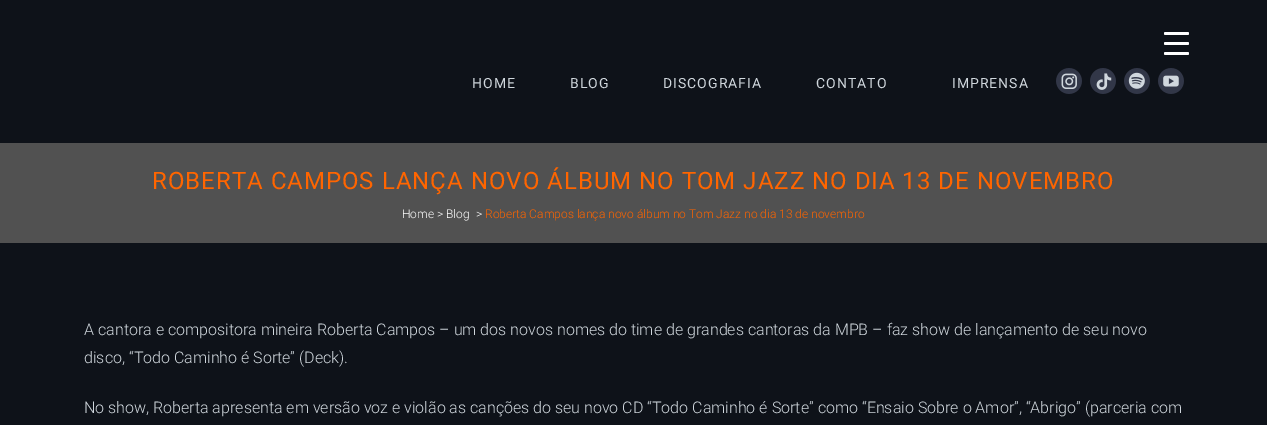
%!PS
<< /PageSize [1267 425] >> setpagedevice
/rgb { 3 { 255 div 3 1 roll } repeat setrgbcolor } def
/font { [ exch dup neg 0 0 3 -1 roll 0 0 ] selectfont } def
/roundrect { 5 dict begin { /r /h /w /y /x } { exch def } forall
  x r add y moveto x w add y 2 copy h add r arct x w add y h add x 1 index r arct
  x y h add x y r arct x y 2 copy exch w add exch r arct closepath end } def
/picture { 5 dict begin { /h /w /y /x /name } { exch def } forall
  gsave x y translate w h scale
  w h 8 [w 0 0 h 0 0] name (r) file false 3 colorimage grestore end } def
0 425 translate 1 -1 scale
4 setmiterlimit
14 18 25 rgb
0 0 1267 425 rectfill
255 255 255 rgb
1164 42 25 3 1.5 roundrect fill
1164 32 25 3 1.5 roundrect fill
1164 52 25 3 1.5 roundrect fill
(img/1.rgb) 1056 68 26 26 picture
(img/2.rgb) 1090 68 26 26 picture
(img/3.rgb) 1124 68 26 26 picture
(img/4.rgb) 1158 68 26 26 picture
81 81 81 rgb
0 143 1267 100 rectfill
/Roboto-Regular 14 font
208 215 221 rgb
472 88 moveto 1 0 (HOME) ashow
570 88 moveto 1 0 (BLOG) ashow
663 88 moveto 1 0 (DISCOGRAFIA) ashow
816 88 moveto 1 0 (CONTATO) ashow
952 88 moveto 1 0 (IMPRENSA) ashow
/Roboto-Regular 24 font
255 101 0 rgb
152 189 moveto 1 0 (ROBERTA CAMPOS LANÇA NOVO ÁLBUM NO TOM JAZZ NO DIA 13 DE NOVEMBRO) ashow
/Roboto-Light 12 font
255 255 255 rgb
402 218 moveto (Home > Blog) show
476 218 moveto (>) show
255 101 0 rgb
485 218 moveto (Roberta Campos lança novo álbum no Tom Jazz no dia 13 de novembro) show
/Roboto-Light 16 font
208 215 221 rgb
[
  [(A cantora e compositora mineira Roberta Campos – um dos novos nomes do time de grandes cantoras da MPB – faz show de lançamento de seu novo) 84 335]
  [(disco, “Todo Caminho é Sorte” \(Deck\).) 84 363]
  [(No show, Roberta apresenta em versão voz e violão as canções do seu novo CD “Todo Caminho é Sorte” como “Ensaio Sobre o Amor”, “Abrigo” \(parceria com) 84 413]
] { aload pop moveto show } forall
showpage
